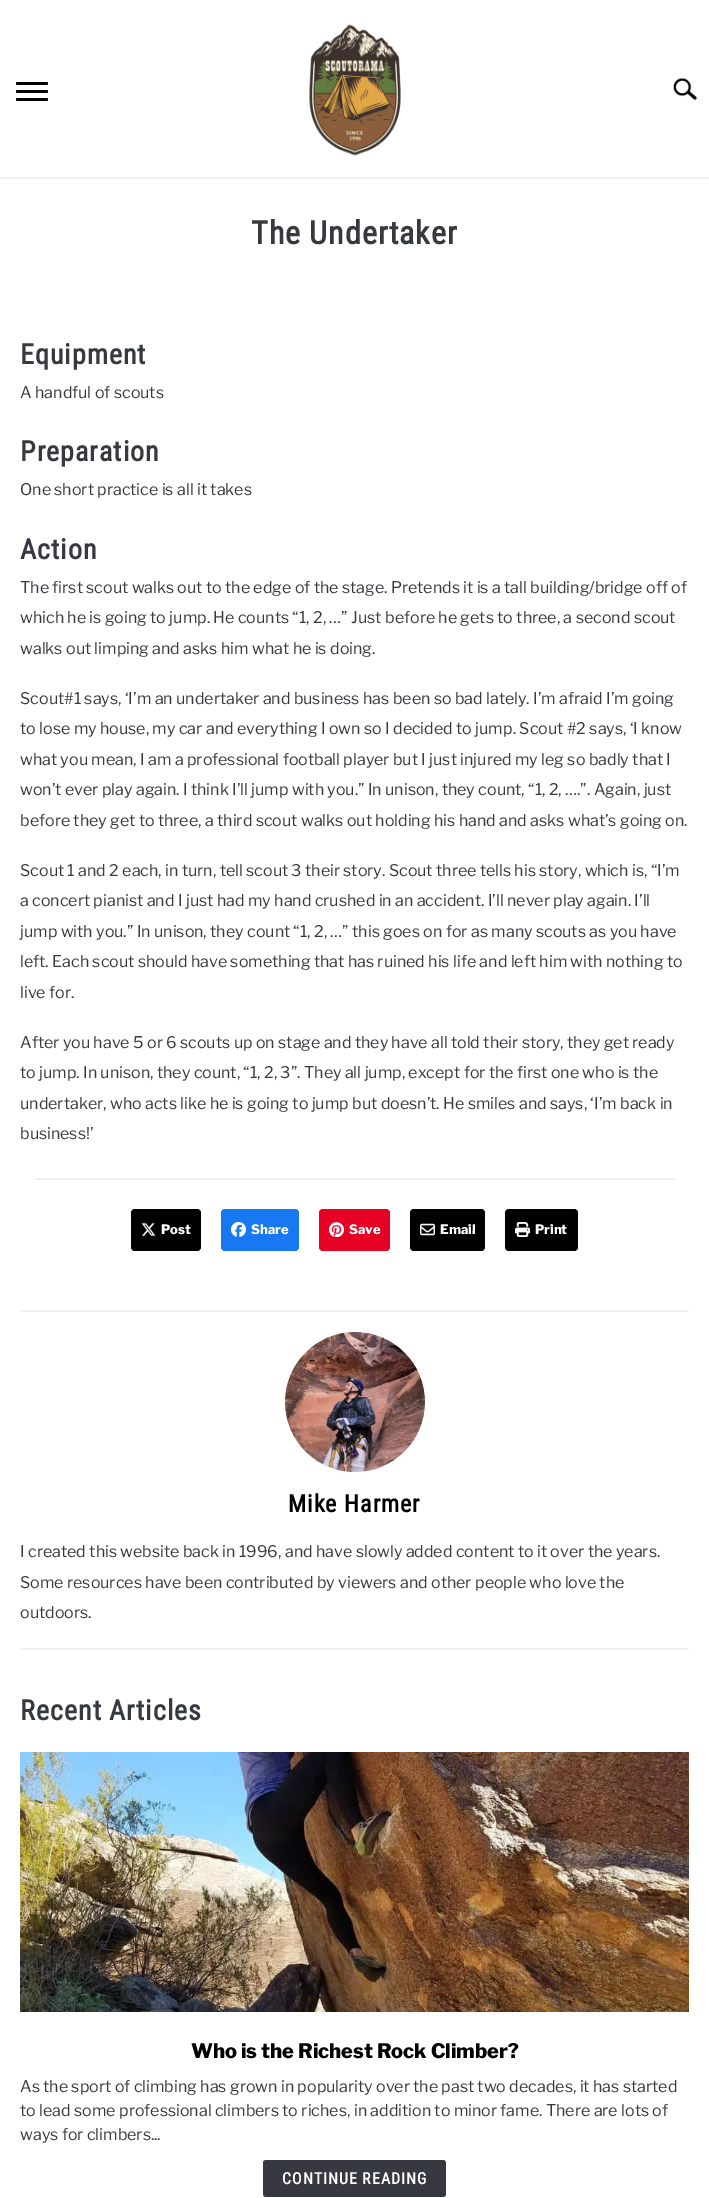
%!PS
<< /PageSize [709 2198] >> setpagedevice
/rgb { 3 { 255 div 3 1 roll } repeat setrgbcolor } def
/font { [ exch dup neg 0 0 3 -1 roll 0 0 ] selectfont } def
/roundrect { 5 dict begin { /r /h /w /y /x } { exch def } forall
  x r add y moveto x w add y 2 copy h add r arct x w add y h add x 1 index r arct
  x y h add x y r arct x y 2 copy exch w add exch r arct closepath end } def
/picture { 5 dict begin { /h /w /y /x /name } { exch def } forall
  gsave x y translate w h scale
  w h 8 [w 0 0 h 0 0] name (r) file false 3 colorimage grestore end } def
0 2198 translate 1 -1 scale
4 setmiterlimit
255 255 255 rgb
0 0 709 2198 rectfill
0 0 0 rgb
16 90 32 3 1.5 roundrect fill
16 82 32 3 1.5 roundrect fill
16 98 32 3 1.5 roundrect fill
(img/1.rgb) 309 24 92 132 picture
(img/2.rgb) 673 78 24 23 picture
240 240 240 rgb
0 177 709 2 rectfill
35 1178 640 2 rectfill
0 0 0 rgb
131 1209 70 42 4 roundrect fill
(img/3.rgb) 141 1223 15 13 picture
24 119 242 rgb
221 1209 78 42 4 roundrect fill
(img/4.rgb) 231 1222 15 15 picture
230 0 35 rgb
319 1209 71 42 4 roundrect fill
(img/5.rgb) 329 1222 15 15 picture
0 0 0 rgb
410 1209 75 42 4 roundrect fill
(img/6.rgb) 420 1223 15 13 picture
505 1209 73 42 4 roundrect fill
(img/7.rgb) 515 1222 15 15 picture
240 240 240 rgb
20 1310 669 2 rectfill
20 1648 669 2 rectfill
(img/8.rgb) 285 1332 140 140 picture
(img/9.rgb) 20 1752 669 260 picture
54 57 64 rgb
263 2160 183 37 3 roundrect fill
/RobotoCondensed-Bold 32 font
251 244 moveto 1 0 (The Undertaker) ashow
/RobotoCondensed-Bold 28 font
20 364 moveto 1 0 (Equipment) ashow
/LibreFranklin-Regular 16 font
20 398 moveto (A handful of scouts) show
/RobotoCondensed-Bold 28 font
20 461 moveto 1 0 (Preparation) ashow
/LibreFranklin-Regular 16 font
20 495 moveto (One short practice is all it takes) show
/RobotoCondensed-Bold 28 font
20 559 moveto 1 0 (Action) ashow
/LibreFranklin-Regular 16 font
[
  [(The first scout walks out to the edge of the stage. Pretends it is a tall building/bridge off of) 20 593]
  [(which he is going to jump. He counts “1, 2, …” Just before he gets to three, a second scout) 20 623]
  [(walks out limping and asks him what he is doing.) 20 654]
  [(Scout#1 says, ‘I’m an undertaker and business has been so bad lately. I’m afraid I’m going) 20 704]
  [(to lose my house, my car and everything I own so I decided to jump. Scout #2 says, ‘I know) 20 734]
  [(what you mean, I am a professional football player but I just injured my leg so badly that I) 20 765]
  [(won’t ever play again. I think I’ll jump with you.” In unison, they count, “1, 2, ….”. Again, just) 20 795]
  [(before they get to three, a third scout walks out holding his hand and asks what’s going on.) 20 826]
  [(Scout 1 and 2 each, in turn, tell scout 3 their story. Scout three tells his story, which is, “I’m) 20 876]
  [(a concert pianist and I just had my hand crushed in an accident. I’ll never play again. I’ll) 20 906]
  [(jump with you.” In unison, they count “1, 2, …” this goes on for as many scouts as you have) 20 937]
  [(left. Each scout should have something that has ruined his life and left him with nothing to) 20 967]
  [(live for.) 20 998]
  [(After you have 5 or 6 scouts up on stage and they have all told their story, they get ready) 20 1048]
  [(to jump. In unison, they count, “1, 2, 3”. They all jump, except for the first one who is the) 20 1078]
  [(undertaker, who acts like he is going to jump but doesn’t. He smiles and says, ‘I’m back in) 20 1109]
  [(business!’) 20 1139]
] { aload pop moveto show } forall
/LibreFranklin-ExtraBold 13 font
255 255 255 rgb
[
  [(Post) 161 1234]
  [(Share) 251 1234]
  [(Save) 349 1234]
  [(Email) 440 1234]
  [(Print) 535 1234]
] { aload pop moveto show } forall
/RobotoCondensed-Bold 24 font
0 0 0 rgb
288 1512 moveto 1 0 (Mike Harmer) ashow
/LibreFranklin-Regular 16 font
54 57 64 rgb
[
  [(I created this website back in 1996, and have slowly added content to it over the years.) 20 1557]
  [(Some resources have been contributed by viewers and other people who love the) 20 1588]
  [(outdoors.) 20 1618]
] { aload pop moveto show } forall
/RobotoCondensed-Bold 28 font
20 1720 moveto 1 0 (Recent Articles) ashow
/LibreFranklin-ExtraBold 20 font
0 0 0 rgb
191 2058 moveto (Who is the Richest Rock Climber?) show
/LibreFranklin-Regular 16 font
54 57 64 rgb
[
  [(As the sport of climbing has grown in popularity over the past two decades, it has started) 20 2092]
  [(to lead some professional climbers to riches, in addition to minor fame. There are lots of) 20 2116]
  [(ways for climbers...) 20 2140]
] { aload pop moveto show } forall
/RobotoCondensed-Bold 16 font
255 255 255 rgb
282 2184 moveto 1 0 (CONTINUE READING) ashow
showpage
